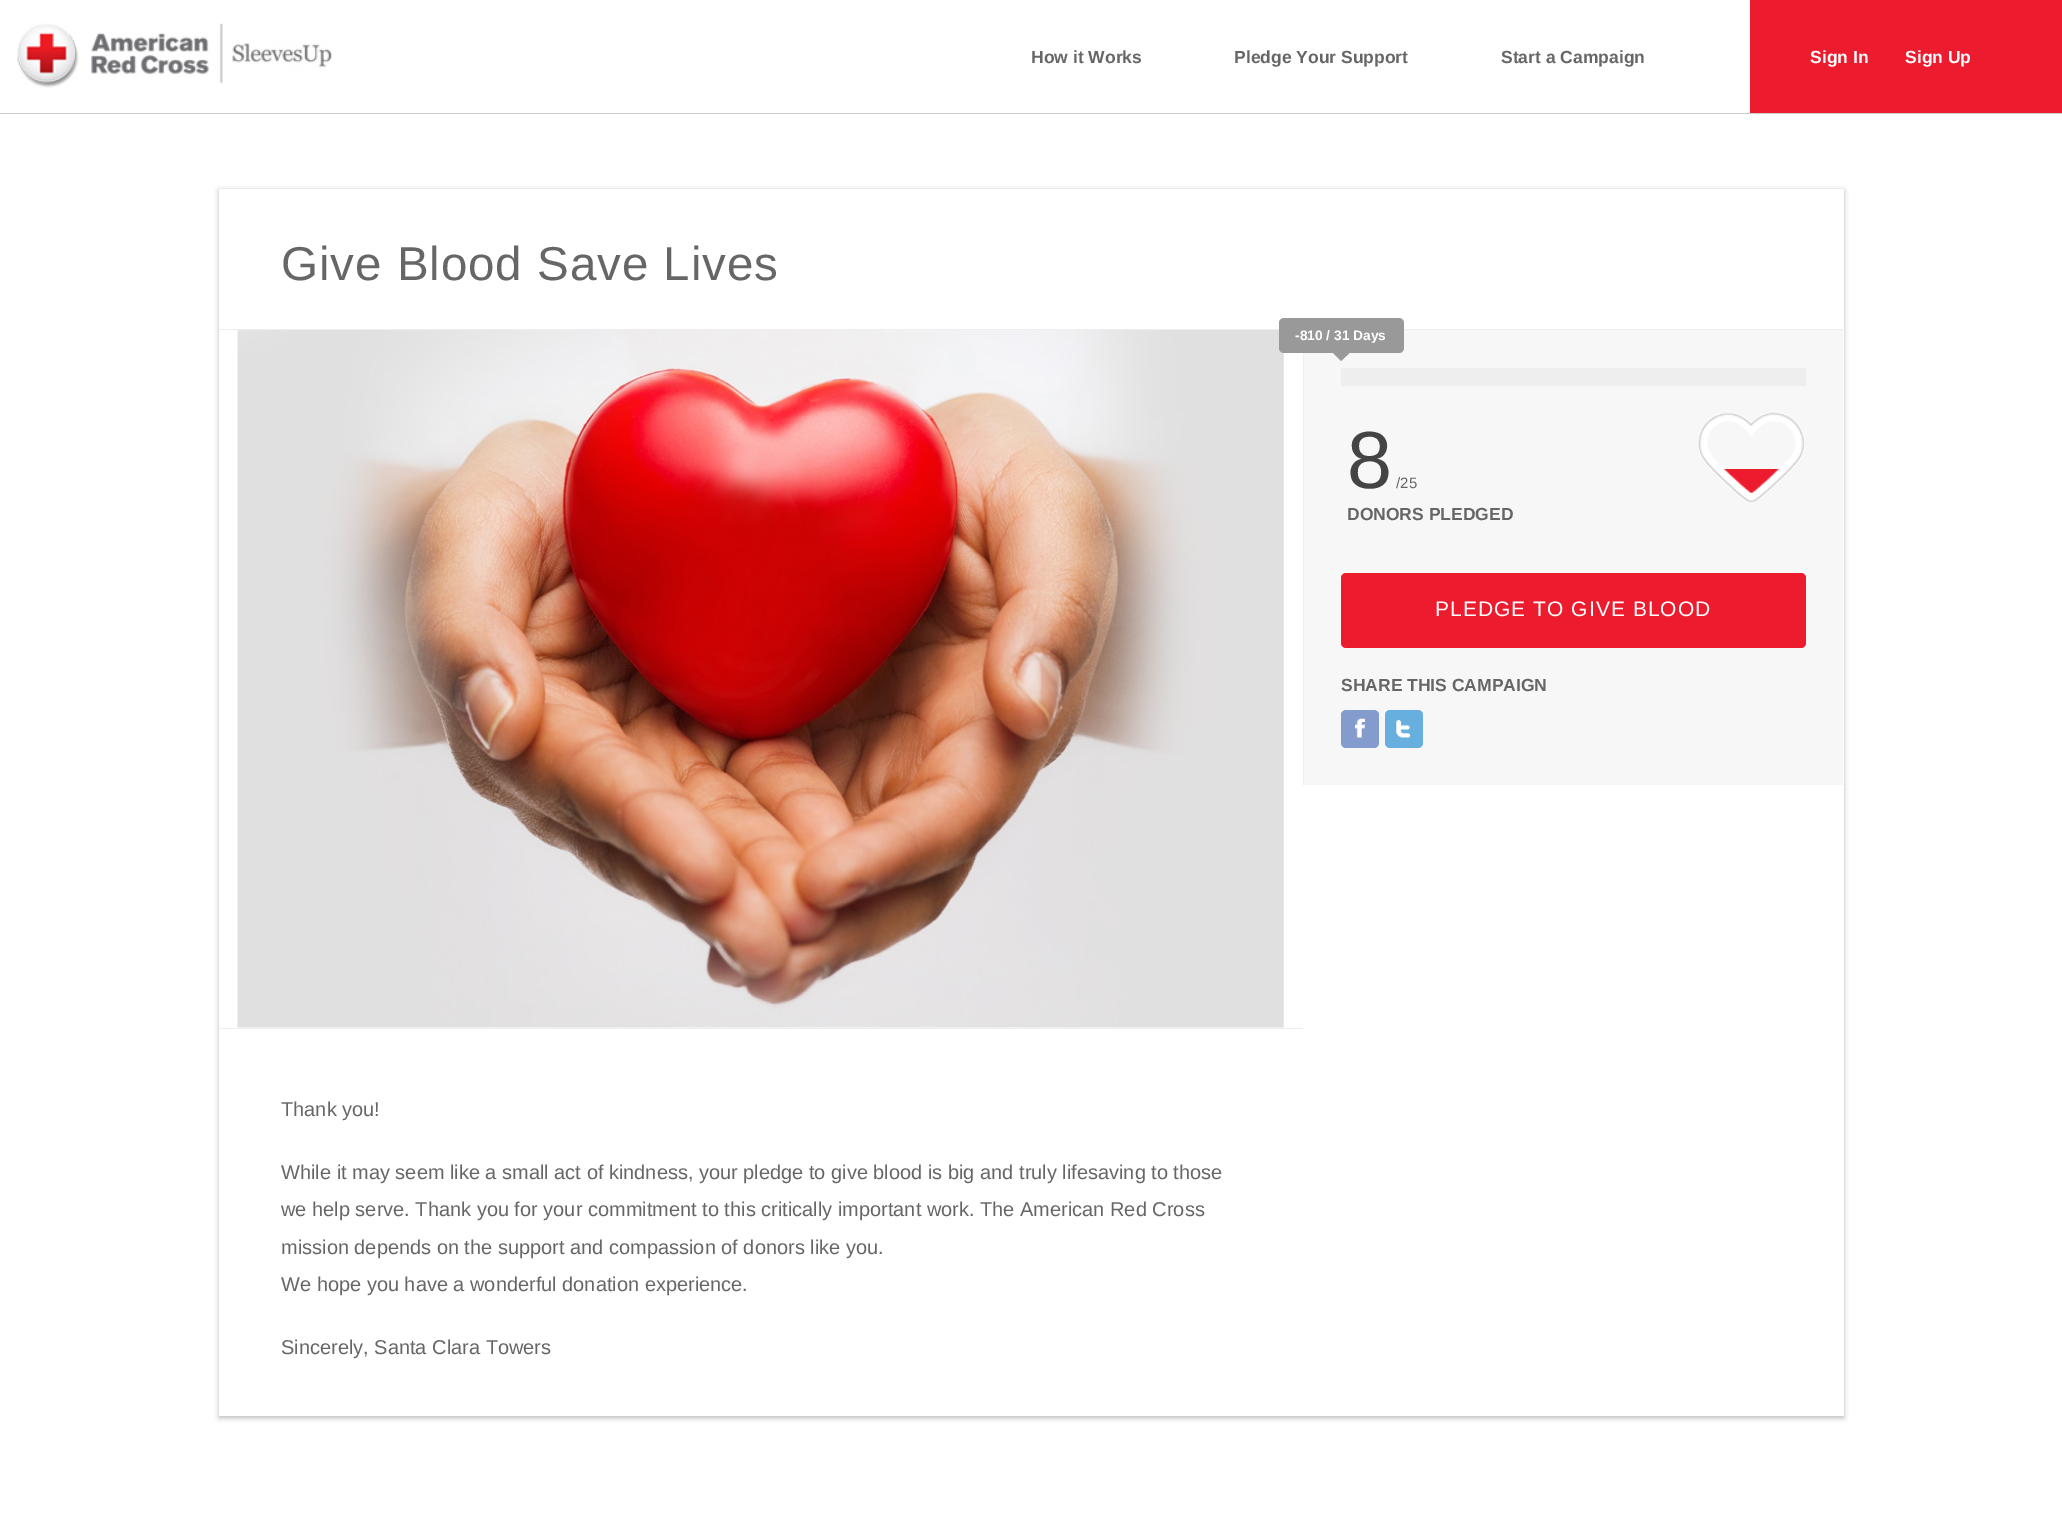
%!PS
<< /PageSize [2062 1540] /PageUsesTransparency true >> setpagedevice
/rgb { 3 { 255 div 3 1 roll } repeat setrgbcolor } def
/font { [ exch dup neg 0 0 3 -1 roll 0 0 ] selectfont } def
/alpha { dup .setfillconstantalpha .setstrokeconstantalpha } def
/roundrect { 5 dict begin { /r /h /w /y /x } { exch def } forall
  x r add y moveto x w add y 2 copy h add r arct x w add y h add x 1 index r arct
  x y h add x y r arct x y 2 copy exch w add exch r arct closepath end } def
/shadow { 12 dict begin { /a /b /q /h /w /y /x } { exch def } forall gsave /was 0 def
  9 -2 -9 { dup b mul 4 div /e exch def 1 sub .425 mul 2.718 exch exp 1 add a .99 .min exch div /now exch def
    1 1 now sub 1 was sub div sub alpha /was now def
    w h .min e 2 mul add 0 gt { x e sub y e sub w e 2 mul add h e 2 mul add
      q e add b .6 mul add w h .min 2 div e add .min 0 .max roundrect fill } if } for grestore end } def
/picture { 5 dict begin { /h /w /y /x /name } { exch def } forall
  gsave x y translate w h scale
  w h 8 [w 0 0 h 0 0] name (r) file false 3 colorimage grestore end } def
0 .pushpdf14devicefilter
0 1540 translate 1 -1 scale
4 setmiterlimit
255 255 255 rgb
0 0 2062 1540 rectfill
204 204 204 rgb
0 113 2062 1 rectfill
(img/1.rgb) 17 23 315 65 picture
237 27 46 rgb
1750 0 312 113 rectfill
gsave
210 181 moveto 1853 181 lineto 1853 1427 lineto 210 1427 lineto closepath 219 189 moveto 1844 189 lineto 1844 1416 lineto 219 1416 lineto closepath eoclip newpath
40 40 40 rgb
219 190 1625 1228 0 2.5 0.3 shadow
grestore
238 238 238 rgb
219 329 1625 1 rectfill
(img/2.rgb) 237 330 1047 698 picture
[
  [1304 330 539 455 247 247 247]
  [1303 353 1 432 238 238 238]
  [1341 368 465 18 238 238 238]
] { aload pop rgb rectfill } forall
153 153 153 rgb
1279 318 125 35 5 roundrect fill
1332.5 352.5 moveto 1350 352.5 lineto 1341 361 lineto closepath fill
237 27 46 rgb
1723 469 56 24 rectfill
(img/3.rgb) 1698 411 107 93 picture
1341 573 465 75 5 roundrect fill
132 155 206 rgb
1341 710 38 38 5 roundrect fill
(img/4.rgb) 1355 718 10 20 picture
102 175 222 rgb
1385 710 38 38 5 roundrect fill
(img/5.rgb) 1396 720 14 18 picture
238 238 238 rgb
219 1028 1084 1 rectfill
/LiberationSans-Bold 17.5 font
102 102 102 rgb
[
  [(How it Works) 1031 63]
  [(Pledge Your Support) 1234 63]
  [(Start a Campaign) 1501 63]
] { aload pop moveto show } forall
255 255 255 rgb
1810 63 moveto (Sign In) show
1905 63 moveto (Sign Up) show
/LiberationSans-Regular 47.5 font
102 102 102 rgb
281 280 moveto 0.95 0 (Give Blood Save Lives) ashow
/LiberationSans-Bold 13.75 font
255 255 255 rgb
1295 340 moveto (-810 / 31 Days) show
/LiberationSans-Regular 81 font
68 68 68 rgb
1347 488 moveto (8) show
/LiberationSans-Regular 15 font
102 102 102 rgb
1396 488 moveto (/25) show
/LiberationSans-Bold 17.5 font
1347 520 moveto (DONORS PLEDGED) show
/LiberationSans-Regular 21 font
255 255 255 rgb
1435 616 moveto 1.05 0 (PLEDGE TO GIVE BLOOD) ashow
/LiberationSans-Bold 17.5 font
102 102 102 rgb
1341 691 moveto (SHARE THIS CAMPAIGN) show
/LiberationSans-Regular 20 font
[
  [(Thank you!) 281 1116]
  [(While it may seem like a small act of kindness, your pledge to give blood is big and truly lifesaving to those) 281 1179]
  [(we help serve. Thank you for your commitment to this critically important work. The American Red Cross) 281 1216]
  [(mission depends on the support and compassion of donors like you.) 281 1254]
  [(We hope you have a wonderful donation experience.) 281 1291]
  [(Sincerely, Santa Clara Towers) 281 1354]
] { aload pop moveto show } forall
.poppdf14devicefilter showpage
